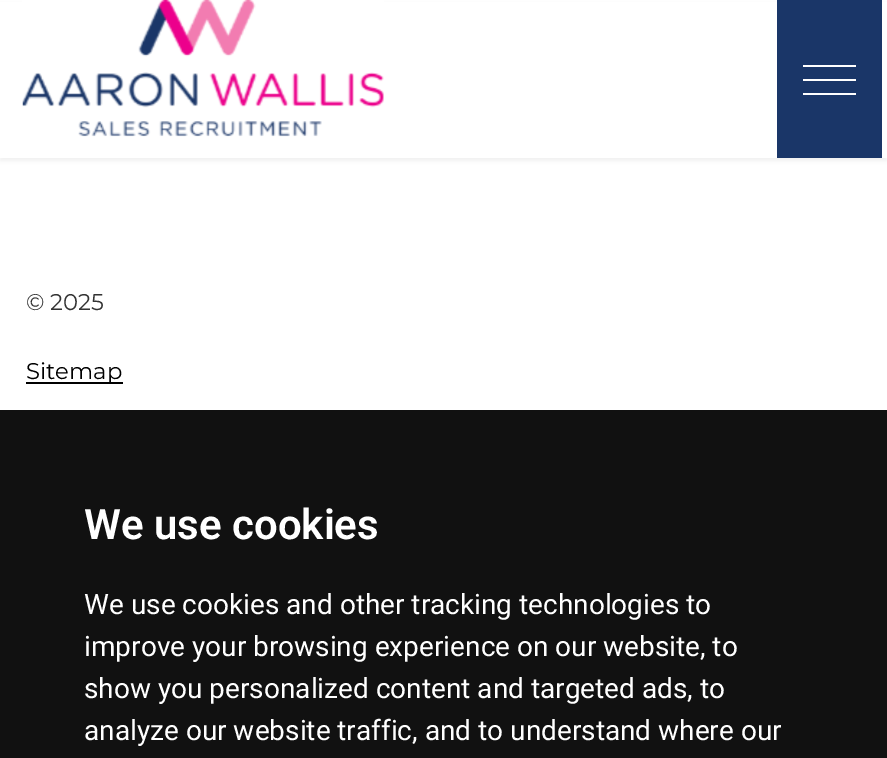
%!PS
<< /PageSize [887 758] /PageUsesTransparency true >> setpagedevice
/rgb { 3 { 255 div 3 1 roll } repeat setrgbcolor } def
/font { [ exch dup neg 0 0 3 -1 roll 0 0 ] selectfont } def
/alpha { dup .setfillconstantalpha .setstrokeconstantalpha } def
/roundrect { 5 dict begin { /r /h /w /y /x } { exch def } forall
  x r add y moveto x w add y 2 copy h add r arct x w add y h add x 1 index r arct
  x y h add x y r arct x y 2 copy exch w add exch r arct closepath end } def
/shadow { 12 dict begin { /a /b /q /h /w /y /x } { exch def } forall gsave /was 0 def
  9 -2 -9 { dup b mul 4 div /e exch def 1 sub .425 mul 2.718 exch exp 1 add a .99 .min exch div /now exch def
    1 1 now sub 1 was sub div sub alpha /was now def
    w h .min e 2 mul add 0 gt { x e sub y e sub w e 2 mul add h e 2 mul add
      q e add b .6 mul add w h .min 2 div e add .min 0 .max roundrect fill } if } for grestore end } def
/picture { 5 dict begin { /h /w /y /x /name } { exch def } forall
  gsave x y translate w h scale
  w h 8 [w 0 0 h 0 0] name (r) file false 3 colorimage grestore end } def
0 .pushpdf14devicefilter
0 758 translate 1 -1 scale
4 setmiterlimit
255 255 255 rgb
0 0 887 758 rectfill
0 0 0 rgb
0 4 887 157 0 2 0.05 shadow
255 255 255 rgb
0 2 887 156 rectfill
(img/1.rgb) 22 0 362 137 picture
[
  [777 0 105 158 26 54 104]
  [803 79 53 2 255 255 255]
  [803 65 53 2 255 255 255]
  [803 93 53 2 255 255 255]
  [26 382 97 2 0 0 0]
  [0 410 887 348 17 17 17]
] { aload pop rgb rectfill } forall
/Montserrat-Regular 22.75 font
51 51 51 rgb
26 310 moveto (© 2025) show
0 0 0 rgb
26 379 moveto (Sitemap) show
/Roboto-SemiBold 42 font
255 255 255 rgb
84 539 moveto (We use cookies) show
/Roboto-Regular 28 font
[
  [(We use cookies and other tracking technologies to) 84 614]
  [(improve your browsing experience on our website, to) 84 656]
  [(show you personalized content and targeted ads, to) 84 698]
  [(analyze our website traffic, and to understand where our) 84 740]
] { aload pop moveto show } forall
.poppdf14devicefilter showpage
